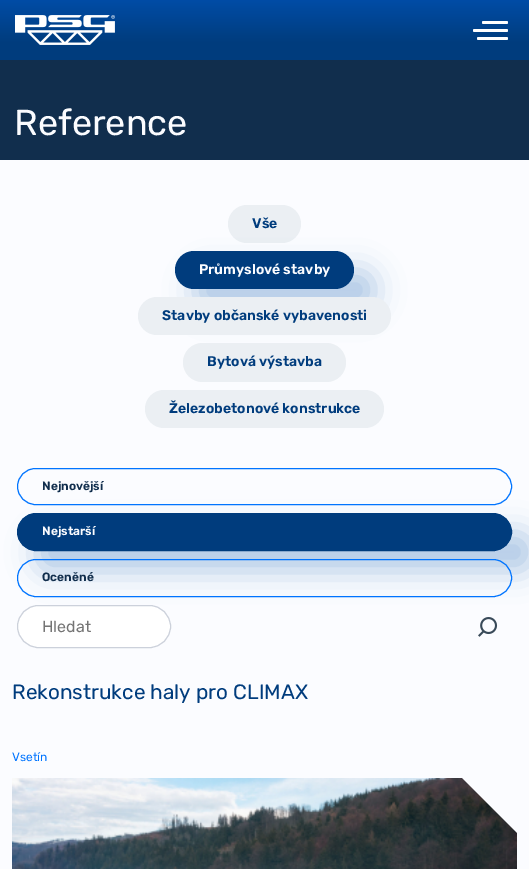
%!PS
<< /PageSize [529 869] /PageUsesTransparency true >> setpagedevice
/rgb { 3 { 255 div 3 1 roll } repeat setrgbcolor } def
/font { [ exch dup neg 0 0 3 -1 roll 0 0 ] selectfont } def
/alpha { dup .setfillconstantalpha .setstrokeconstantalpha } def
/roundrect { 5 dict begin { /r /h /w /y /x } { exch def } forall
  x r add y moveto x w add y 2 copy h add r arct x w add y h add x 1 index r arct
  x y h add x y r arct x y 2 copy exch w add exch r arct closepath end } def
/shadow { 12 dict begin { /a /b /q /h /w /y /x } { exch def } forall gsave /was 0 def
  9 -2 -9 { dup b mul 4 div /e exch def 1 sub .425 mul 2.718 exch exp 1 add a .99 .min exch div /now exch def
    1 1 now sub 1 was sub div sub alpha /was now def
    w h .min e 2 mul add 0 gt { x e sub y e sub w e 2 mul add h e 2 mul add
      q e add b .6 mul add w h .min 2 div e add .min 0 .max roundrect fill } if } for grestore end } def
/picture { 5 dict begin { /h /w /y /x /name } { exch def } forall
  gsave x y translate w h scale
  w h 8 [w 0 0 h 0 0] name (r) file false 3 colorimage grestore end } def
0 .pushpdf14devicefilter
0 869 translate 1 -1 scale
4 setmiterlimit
17 46 77 rgb
0 0 529 869 rectfill
0 60 125 rgb
0 50 529 10 rectfill
gsave 0 0 moveto 529 0 lineto 529 50 lineto 0 50 lineto closepath clip newpath
<< /ShadingType 2 /ColorSpace /DeviceRGB /Coords [265 -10 265 50] /Extend [true true] /Function << /FunctionType 3 /Domain [0 1] /Functions [<< /FunctionType 2 /Domain [0 1] /C0 [0 0.314 0.69] /C1 [0 0.235 0.49] /N 1 >> << /FunctionType 2 /Domain [0 1] /C0 [0 0.235 0.49] /C1 [0 0.235 0.49] /N 1 >>] /Bounds [0.88] /Encode [0 1 0 1] >> >> shfill grestore
(img/1.rgb) 15 15 100 30 picture
255 255 255 rgb
482 21 26 3 1.5 roundrect fill
473 29 35 3 1.5 roundrect fill
477 37 31 3 1.5 roundrect fill
251 252 255 rgb
0 160 529 709 rectfill
235 239 243 rgb
228 205 73 38 19 roundrect fill
0 80 176 rgb
195 271 179 38 19 15 0.3 shadow
0 60 125 rgb
175 251 179 38 19 roundrect fill
235 239 243 rgb
138 297 253 38 19 roundrect fill
183 343 163 39 19.5 roundrect fill
145 390 239 38 19 roundrect fill
0 116 255 rgb
17.5 468.5 494 36 18 roundrect stroke
0 80 176 rgb
37 533 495 38 19 15 0.3 shadow
0 60 125 rgb
17.5 513.5 494 37 18.5 roundrect gsave fill grestore
stroke
0 116 255 rgb
17.5 559.5 494 37 18.5 roundrect stroke
255 255 255 rgb
17.5 605.5 153 42 21 roundrect gsave fill grestore
204 209 219 rgb
stroke
(img/2.rgb) 478 617 20 20 picture
(img/3.rgb) 12 778 505 91 picture
/Rubik-Regular 36 font
251 252 255 rgb
14 135 moveto (Reference) show
/Rubik-SemiBold 14 font
0 60 125 rgb
252 228 moveto (Vše) show
251 252 255 rgb
199 274 moveto (Průmyslové stavby) show
0 60 125 rgb
[
  [(Stavby občanské vybavenosti) 162 320]
  [(Bytová výstavba) 207 366]
  [(Železobetonové konstrukce) 169 413]
] { aload pop moveto show } forall
/Rubik-SemiBold 12 font
17 46 77 rgb
42 490 moveto (Nejnovější) show
251 252 255 rgb
42 535 moveto (Nejstarší) show
17 46 77 rgb
42 581 moveto (Oceněné) show
/Rubik-Regular 16 font
117 117 117 rgb
42 632 moveto (Hledat) show
/Rubik-Regular 20.75 font
0 60 125 rgb
12 699 moveto (Rekonstrukce haly pro CLIMAX) show
/Rubik-Regular 12 font
0 116 255 rgb
12 761 moveto (Vsetín) show
.poppdf14devicefilter showpage
